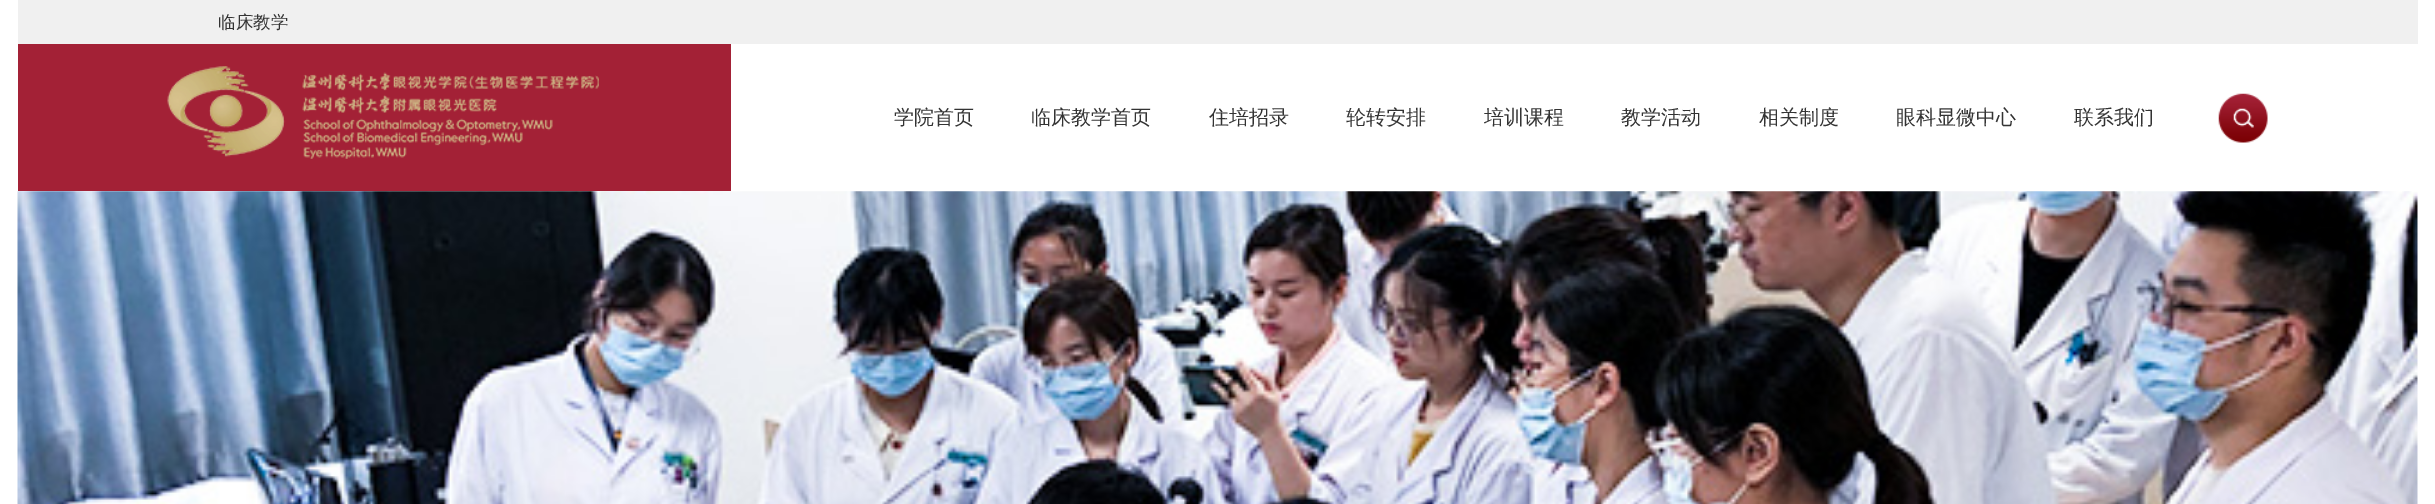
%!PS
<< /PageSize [2435 504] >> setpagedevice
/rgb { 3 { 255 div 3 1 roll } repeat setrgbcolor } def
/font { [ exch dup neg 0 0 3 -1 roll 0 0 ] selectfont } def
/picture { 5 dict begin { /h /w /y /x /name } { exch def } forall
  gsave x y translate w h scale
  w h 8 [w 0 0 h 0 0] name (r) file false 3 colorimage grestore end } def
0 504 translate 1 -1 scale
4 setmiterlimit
255 255 255 rgb
0 0 2435 504 rectfill
240 240 240 rgb
18 0 2400 44 rectfill
163 33 54 rgb
18 44 713 147 rectfill
(img/1.rgb) 167 66 432 93 picture
(img/2.rgb) 2218 93 50 50 picture
(img/3.rgb) 17 191 2401 313 picture
/WenQuanYiZenHei-Medium 17.5 font
51 51 51 rgb
218 28 moveto (临床教学) show
/WenQuanYiZenHei-Medium 20 font
[
  [(学院首页) 894 124]
  [(临床教学首页) 1031 124]
  [(住培招录) 1209 124]
  [(轮转安排) 1346 124]
  [(培训课程) 1484 124]
  [(教学活动) 1621 124]
  [(相关制度) 1759 124]
  [(眼科显微中心) 1896 124]
  [(联系我们) 2074 124]
] { aload pop moveto show } forall
showpage
